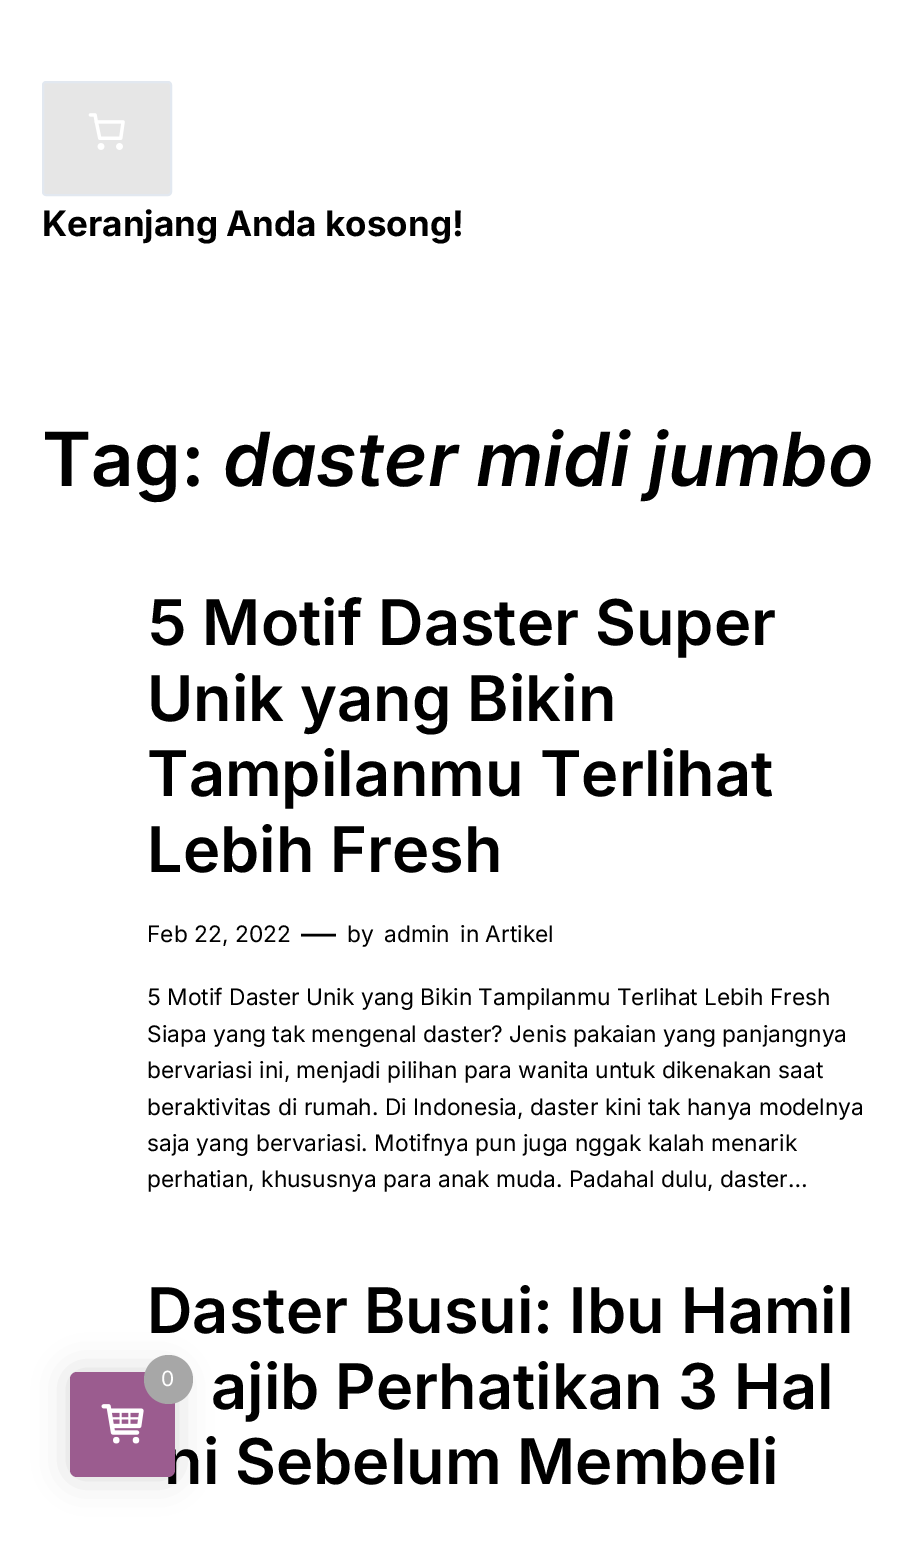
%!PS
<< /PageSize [921 1546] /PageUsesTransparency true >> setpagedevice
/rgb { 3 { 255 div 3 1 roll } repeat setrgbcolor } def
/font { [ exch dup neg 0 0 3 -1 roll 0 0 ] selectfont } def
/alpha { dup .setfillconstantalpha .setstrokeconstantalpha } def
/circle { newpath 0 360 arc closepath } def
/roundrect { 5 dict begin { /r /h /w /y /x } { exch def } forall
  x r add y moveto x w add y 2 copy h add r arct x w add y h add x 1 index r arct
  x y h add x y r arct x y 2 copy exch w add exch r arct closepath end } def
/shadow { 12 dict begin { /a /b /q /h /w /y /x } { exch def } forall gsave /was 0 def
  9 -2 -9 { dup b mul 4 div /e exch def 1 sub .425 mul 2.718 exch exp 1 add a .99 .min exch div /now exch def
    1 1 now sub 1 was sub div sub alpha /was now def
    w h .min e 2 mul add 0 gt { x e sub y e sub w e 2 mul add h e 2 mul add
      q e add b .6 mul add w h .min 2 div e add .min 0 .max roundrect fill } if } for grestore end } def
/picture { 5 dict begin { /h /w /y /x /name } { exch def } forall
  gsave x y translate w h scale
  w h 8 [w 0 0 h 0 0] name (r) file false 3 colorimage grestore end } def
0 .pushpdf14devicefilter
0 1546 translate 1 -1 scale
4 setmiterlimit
255 255 255 rgb
0 0 921 1546 rectfill
230 230 230 rgb
43 82 128 113 3 roundrect gsave fill grestore
226 232 240 rgb
2 setlinewidth
stroke
(img/1.rgb) 88 113 37 37 picture
0 0 0 rgb
70 1372 105 105 7 17.5 0.15 shadow
/Inter-Bold 35 font
42 236 moveto (Keranjang Anda kosong!) show
/Inter-SemiBold 74.75 font
42 486 moveto (Tag:) show
/Inter-SemiBoldItalic 74.75 font
223 486 moveto (daster midi jumbo) show
/Inter-SemiBold 63 font
[
  [(5 Motif Daster Super) 147 645]
  [(Unik yang Bikin) 147 721]
  [(Tampilanmu Terlihat) 147 796]
  [(Lebih Fresh) 147 872]
] { aload pop moveto show } forall
/Inter-Regular 22.75 font
147 942 moveto (Feb 22, 2022) show
/Inter-Regular 35 font
301 946 moveto (—) show
/Inter-Regular 22.75 font
[
  [(by) 347 942]
  [(admin) 384 942]
  [(in Artikel) 460 942]
  [(5 Motif Daster Unik yang Bikin Tampilanmu Terlihat Lebih Fresh) 147 1005]
  [(Siapa yang tak mengenal daster? Jenis pakaian yang panjangnya) 147 1042]
  [(bervariasi ini, menjadi pilihan para wanita untuk dikenakan saat) 147 1078]
  [(beraktivitas di rumah. Di Indonesia, daster kini tak hanya modelnya) 147 1115]
  [(saja yang bervariasi. Motifnya pun juga nggak kalah menarik) 147 1151]
  [(perhatian, khususnya para anak muda. Padahal dulu, daster…) 147 1187]
] { aload pop moveto show } forall
/Inter-SemiBold 63 font
[
  [(Daster Busui: Ibu Hamil) 147 1333]
  [(ajib Perhatikan 3 Hal) 211 1409]
  [(ni Sebelum Membeli) 164 1484]
] { aload pop moveto show } forall
155 92 143 rgb
70 1372 105 105 7 roundrect fill
167 167 167 rgb
168.5 1379.5 24.5 circle fill
/Inter-Regular 21 font
255 255 255 rgb
161 1386 moveto (0) show
(img/2.rgb) 101 1404 43 40 picture
.poppdf14devicefilter showpage
